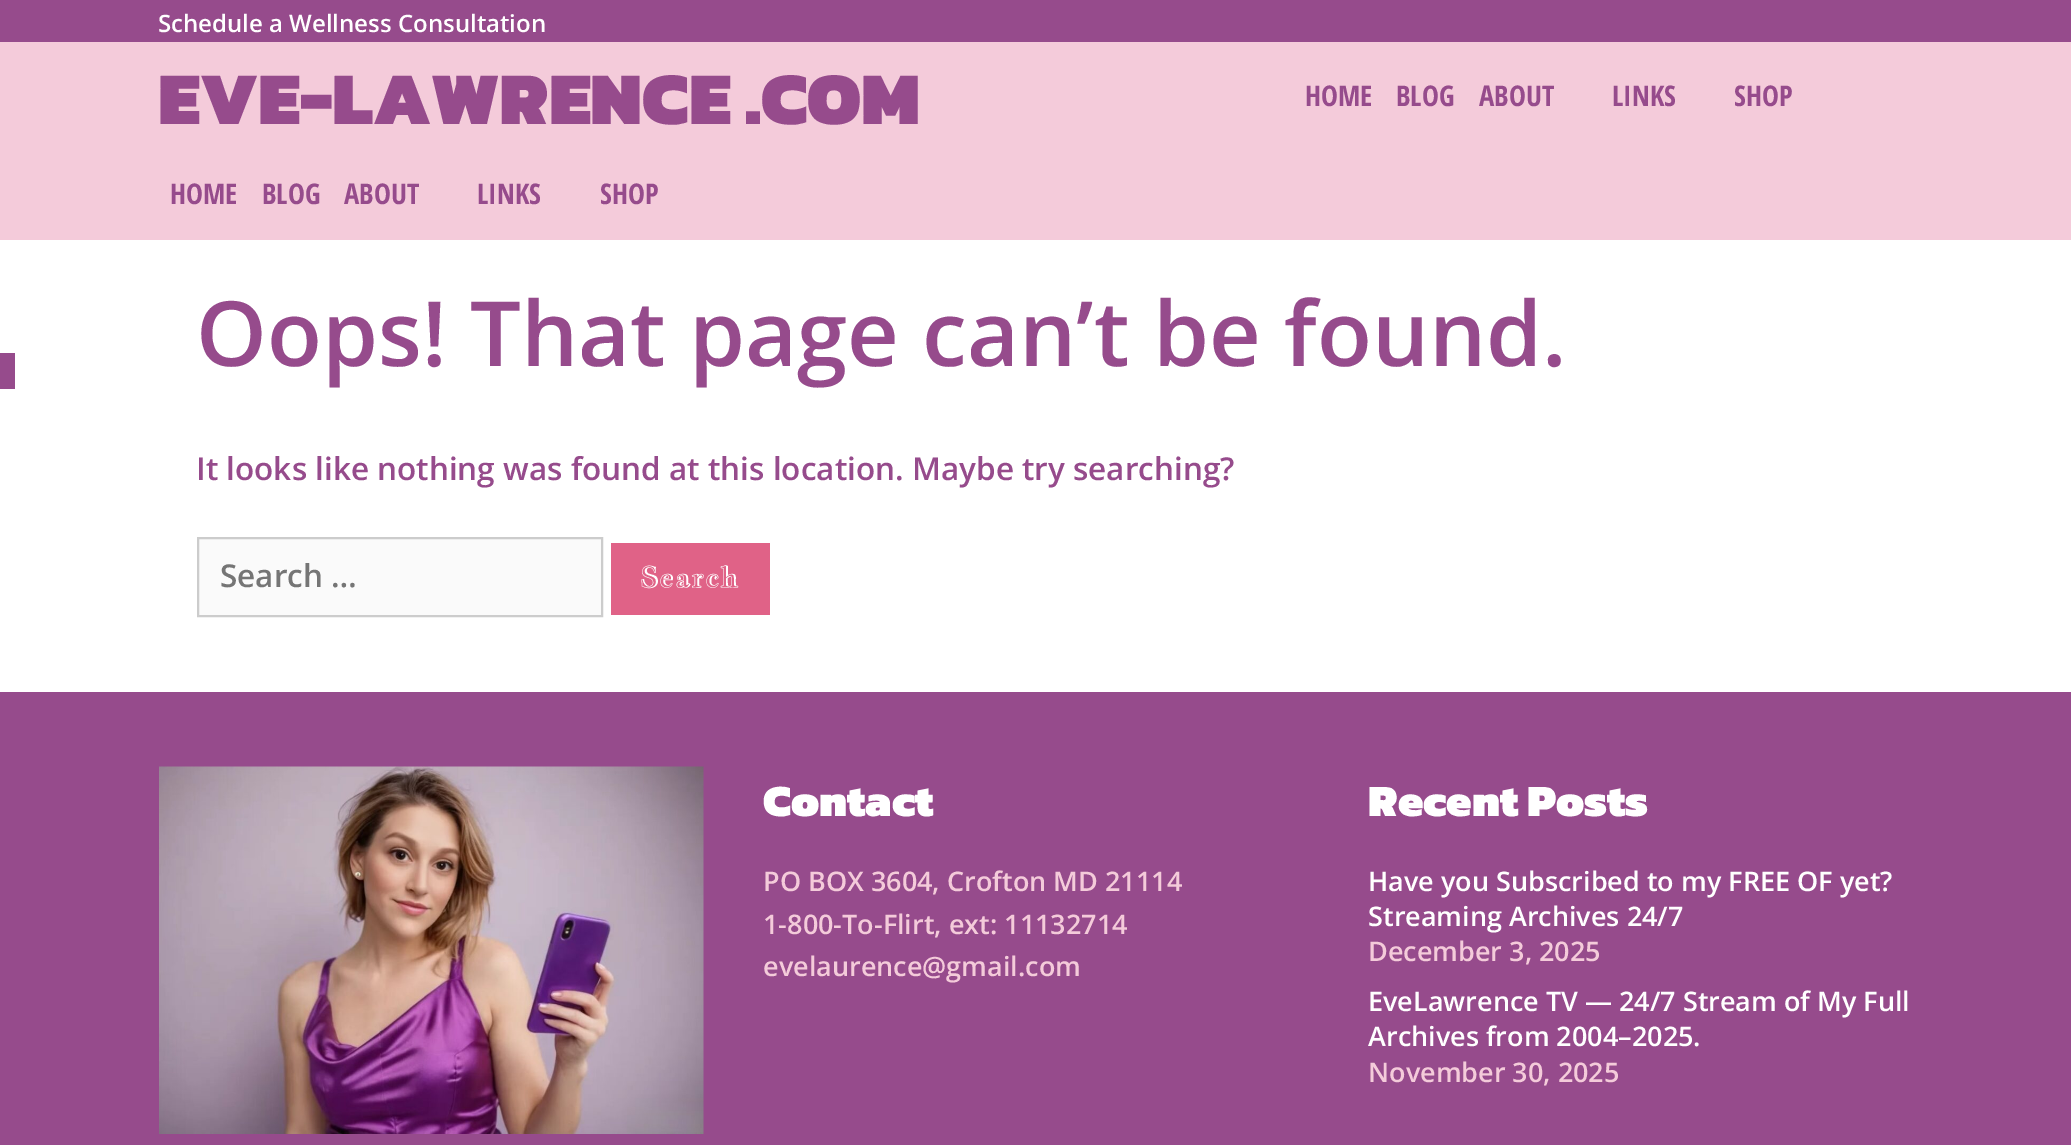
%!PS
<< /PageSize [2071 1145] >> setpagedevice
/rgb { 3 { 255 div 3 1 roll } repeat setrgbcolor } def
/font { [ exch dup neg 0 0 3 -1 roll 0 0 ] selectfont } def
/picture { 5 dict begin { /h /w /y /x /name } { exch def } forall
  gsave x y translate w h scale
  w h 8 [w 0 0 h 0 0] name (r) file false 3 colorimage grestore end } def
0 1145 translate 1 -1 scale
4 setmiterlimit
255 255 255 rgb
0 0 2071 1145 rectfill
[
  [0 0 2071 42 150 75 140]
  [0 42 2071 198 244 203 218]
  [0 353 15 36 150 75 140]
] { aload pop rgb rectfill } forall
250 250 250 rgb
198 538 moveto 602 538 lineto 602 616 lineto 198 616 lineto closepath gsave fill grestore
204 204 204 rgb
2 setlinewidth
stroke
224 98 135 rgb
611 543 159 72 rectfill
150 75 140 rgb
0 692 2071 453 rectfill
(img/1.rgb) 159 766 545 368 picture
/OpenSans-SemiBold 24 font
255 255 255 rgb
158 32 moveto (Schedule a Wellness Consultation) show
/Kanit-Black 75 font
150 75 140 rgb
158 124 moveto (EVE-LAWRENCE .COM) show
/OpenSansCondensed-Bold 28.5 font
[
  [(HOME) 1305 106]
  [(BLOG) 1396 106]
  [(ABOUT) 1479 106]
  [(LINKS) 1612 106]
  [(SHOP) 1734 106]
  [(HOME) 170 204]
  [(BLOG) 262 204]
  [(ABOUT) 344 204]
  [(LINKS) 477 204]
  [(SHOP) 600 204]
] { aload pop moveto show } forall
/OpenSans-SemiBold 90 font
196 366 moveto (Oops! That page can’t be found.) show
/OpenSans-SemiBold 31.5 font
196 480 moveto (It looks like nothing was found at this location. Maybe try searching?) show
117 117 117 rgb
220 587 moveto (Search …) show
/JacquesFrancoisShadow-Regular 28.5 font
255 255 255 rgb
640 587 moveto (Search) show
/Kanit-Black 45 font
763 816 moveto (Contact) show
/OpenSans-SemiBold 27 font
244 203 218 rgb
[
  [(PO BOX 3604, Crofton MD 21114) 763 891]
  [(1-800-To-Flirt, ext: 11132714) 763 934]
  [(evelaurence@gmail.com) 763 976]
] { aload pop moveto show } forall
/Kanit-Black 45 font
255 255 255 rgb
1368 816 moveto (Recent Posts) show
/OpenSans-SemiBold 27 font
1368 891 moveto (Have you Subscribed to my FREE OF yet?) show
1368 926 moveto (Streaming Archives 24/7) show
244 203 218 rgb
1368 961 moveto (December 3, 2025) show
255 255 255 rgb
1368 1011 moveto (EveLawrence TV — 24/7 Stream of My Full) show
1368 1046 moveto (Archives from 2004–2025.) show
244 203 218 rgb
1368 1082 moveto (November 30, 2025) show
showpage
